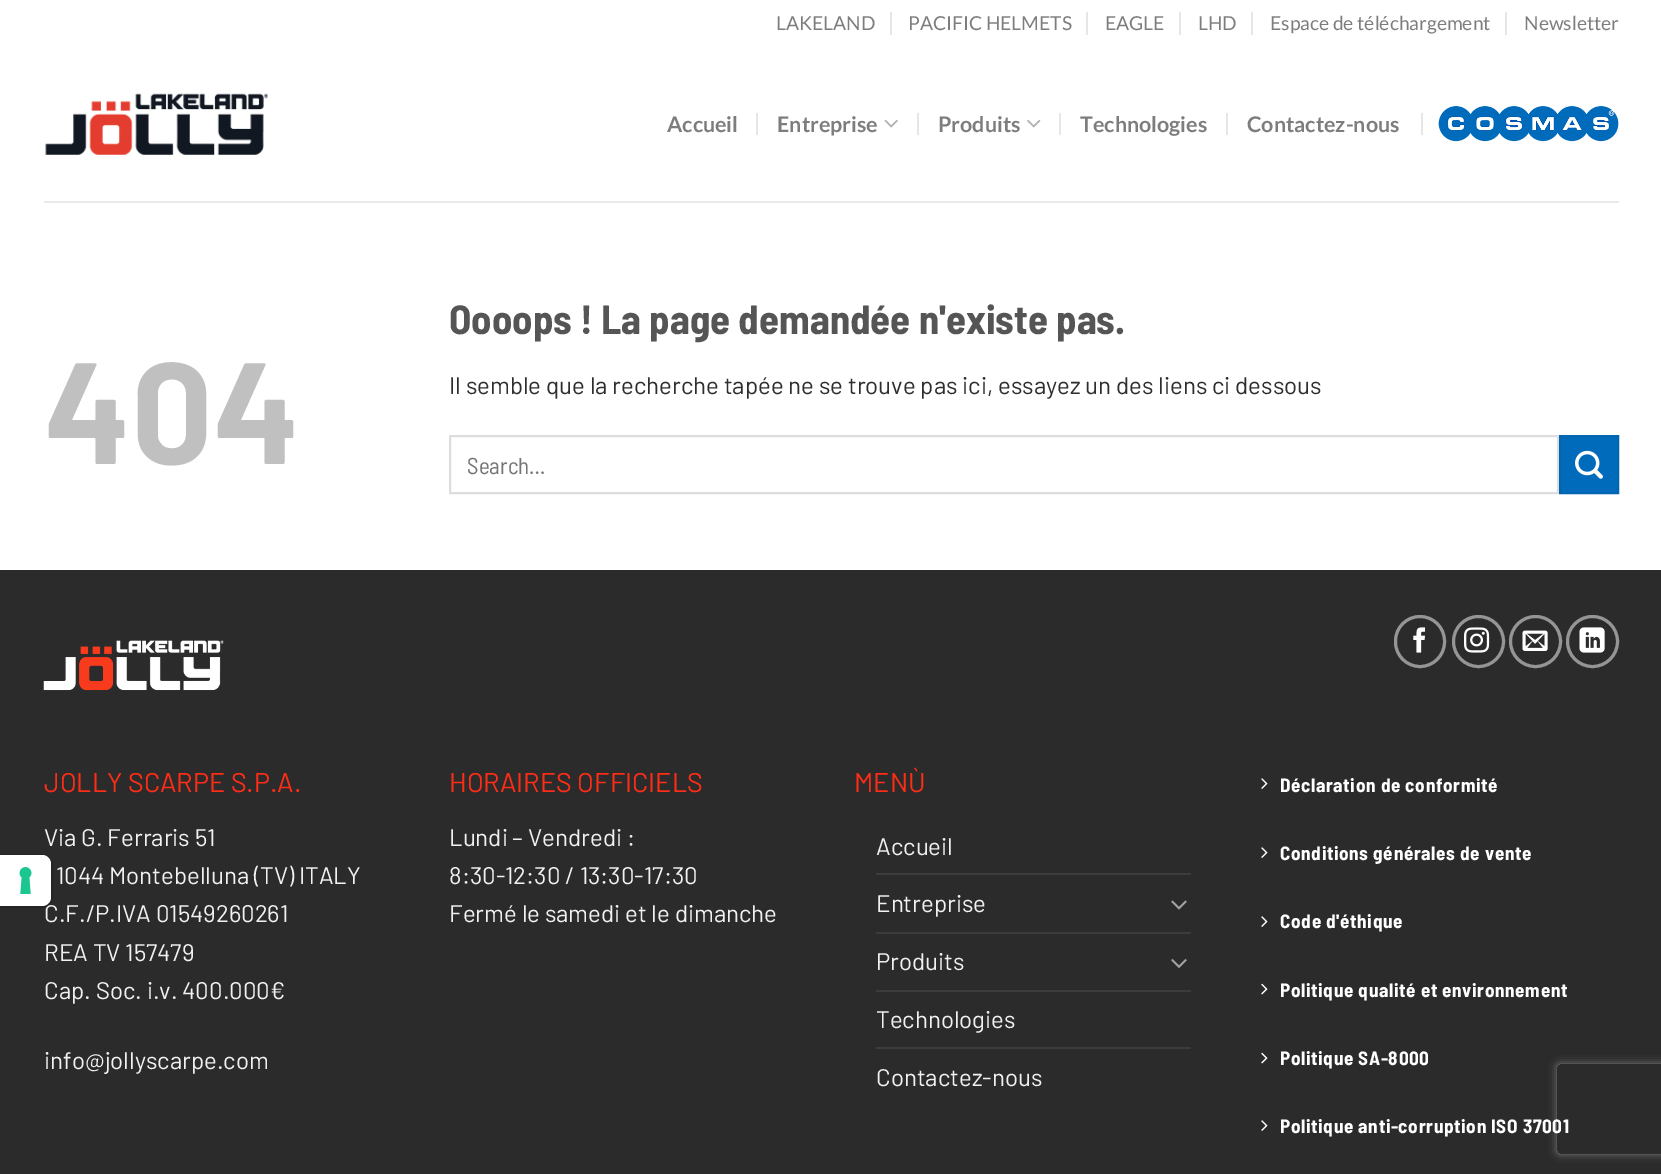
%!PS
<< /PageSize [1661 1174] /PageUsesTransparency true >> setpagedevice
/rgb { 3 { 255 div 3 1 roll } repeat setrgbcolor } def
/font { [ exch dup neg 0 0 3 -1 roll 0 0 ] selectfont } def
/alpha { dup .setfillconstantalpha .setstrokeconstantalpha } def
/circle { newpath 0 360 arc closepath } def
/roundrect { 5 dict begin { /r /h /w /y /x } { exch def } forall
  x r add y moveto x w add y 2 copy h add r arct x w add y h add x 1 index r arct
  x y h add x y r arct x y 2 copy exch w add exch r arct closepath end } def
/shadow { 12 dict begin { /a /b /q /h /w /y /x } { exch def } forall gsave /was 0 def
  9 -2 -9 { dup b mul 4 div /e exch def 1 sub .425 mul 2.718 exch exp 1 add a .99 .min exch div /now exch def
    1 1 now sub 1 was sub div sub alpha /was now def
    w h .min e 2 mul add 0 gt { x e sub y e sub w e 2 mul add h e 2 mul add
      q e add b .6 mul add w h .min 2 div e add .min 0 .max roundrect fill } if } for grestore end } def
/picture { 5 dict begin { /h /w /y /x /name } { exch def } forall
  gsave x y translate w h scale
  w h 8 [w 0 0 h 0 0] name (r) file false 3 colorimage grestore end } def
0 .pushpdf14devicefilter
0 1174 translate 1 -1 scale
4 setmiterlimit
255 255 255 rgb
0 0 1661 1174 rectfill
[
  [890 12 2 23 230 230 230]
  [1086 12 2 23 230 230 230]
  [1179 12 2 23 230 230 230]
  [1251 12 2 23 230 230 230]
  [1505 12 2 23 230 230 230]
] { aload pop rgb rectfill } forall
(img/2.rgb) 45 93 223 62 picture
756 113 2 22 rectfill
(img/3.rgb) 884 119 14 9 picture
917 113 2 22 rectfill
(img/4.rgb) 1027 119 14 9 picture
[
  [1059 113 2 22 230 230 230]
  [1226 113 2 22 230 230 230]
  [1421 113 2 22 230 230 230]
] { aload pop rgb rectfill } forall
(img/5.rgb) 1438 106 181 36 picture
234 234 234 rgb
44 201 1575 2 rectfill
221 221 221 rgb
2 setlinewidth
450 436 1108 57 rectstroke
0 107 187 rgb
1560 436 moveto 1618 436 lineto 1618 493 lineto 1560 493 lineto closepath gsave fill grestore
0 102 178 rgb
stroke
(img/6.rgb) 1575 450 28 29 picture
43 43 43 rgb
0 570 1661 604 rectfill
(img/7.rgb) 43 640 181 51 picture
149 149 149 rgb
3 setlinewidth
1395.5 616.5 49 50 24.5 roundrect stroke
(img/8.rgb) 1413 627 13 26 picture
1478.5 641.5 25 circle stroke
(img/9.rgb) 1464 627 26 26 picture
1535.5 641.5 25 circle stroke
(img/10.rgb) 1522 630 26 21 picture
1592.5 641.5 25 circle stroke
(img/11.rgb) 1579 627 26 26 picture
60 60 60 rgb
876 873 315 2 rectfill
(img/12.rgb) 1171 900 16 10 picture
876 932 315 2 rectfill
(img/13.rgb) 1171 959 16 9 picture
876 990 315 2 rectfill
876 1047 315 2 rectfill
(img/14.rgb) 1261 778 7 11 picture
(img/14.rgb) 1261 847 7 11 picture
(img/14.rgb) 1261 916 7 11 picture
(img/15.rgb) 1261 983 7 12 picture
(img/15.rgb) 1261 1052 7 12 picture
(img/14.rgb) 1261 1120 7 11 picture
gsave
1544 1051 moveto 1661 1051 lineto 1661 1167 lineto 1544 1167 lineto closepath 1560 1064 moveto 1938 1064 lineto 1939.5 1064 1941 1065.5 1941 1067 curveto 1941 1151 lineto 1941 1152.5 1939.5 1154 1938 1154 curveto 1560 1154 lineto 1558.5 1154 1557 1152.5 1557 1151 curveto 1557 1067 lineto 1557 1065.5 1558.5 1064 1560 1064 curveto closepath eoclip newpath
128 128 128 rgb
1557 1064 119 90 3 4 1 shadow
grestore
/Lato-Regular 19.25 font
125 125 125 rgb
[
  [(LAKELAND) 776 30]
  [(PACIFIC HELMETS) 908 30]
  [(EAGLE) 1105 30]
  [(LHD) 1198 30]
  [(Espace de téléchargement) 1270 30]
  [(Newsletter) 1524 30]
] { aload pop moveto show } forall
/Lato-Bold 21.5 font
[
  [(Accueil) 667 132]
  [(Entreprise) 777 132]
  [(Produits) 938 132]
  [(Technologies) 1080 132]
  [(Contactez-nous) 1247 132]
] { aload pop moveto show } forall
/Barlow-Bold 144 font
192 192 192 rgb
44 464 moveto (404) show
/BarlowSemiCondensed-Bold 40.75 font
85 85 85 rgb
449 334 moveto (Oooops ! La page demandée n'existe pas.) show
/Barlow-Regular 24 font
46 46 45 rgb
449 394 moveto (Il semble que la recherche tapée ne se trouve pas ici, essayez un des liens ci dessous) show
/BarlowSemiCondensed-Regular 23 font
117 117 117 rgb
467 474 moveto (Search…) show
/Barlow-Regular 27 font
255 45 22 rgb
44 792 moveto (JOLLY SCARPE S.P.A.) show
/Barlow-Regular 24 font
241 241 241 rgb
[
  [(Via G. Ferraris 51) 44 846]
  [(1044 Montebelluna \(TV\) ITALY) 56 884]
  [(C.F./P.IVA 01549260261) 44 922]
] { aload pop moveto show } forall
0.15 alpha
0 0 0 rgb
2 setlinewidth
0 855 moveto 42 855 lineto 47.5 855 52 859.5 52 865 curveto 52 897 lineto 52 902.5 47.5 907 42 907 curveto 0 907 lineto closepath stroke
1 alpha
255 255 255 rgb
0 855 moveto 42 855 lineto 47 855 51 859 51 864 curveto 51 897 lineto 51 902 47 906 42 906 curveto 0 906 lineto closepath fill
(img/1.rgb) 19 867 13 27 picture
241 241 241 rgb
[
  [(REA TV 157479) 44 961]
  [(Cap. Soc. i.v. 400.000€) 44 999]
  [(info@jollyscarpe.com) 44 1069]
] { aload pop moveto show } forall
/Barlow-Regular 27 font
255 45 22 rgb
449 792 moveto (HORAIRES OFFICIELS) show
/Barlow-Regular 24 font
241 241 241 rgb
[
  [(Lundi – Vendredi :) 449 846]
  [(8:30-12:30 / 13:30-17:30) 449 884]
  [(Fermé le samedi et le dimanche) 449 922]
] { aload pop moveto show } forall
/Barlow-Regular 27 font
255 45 22 rgb
854 792 moveto (MENÙ) show
/Barlow-Regular 24 font
241 241 241 rgb
[
  [(Accueil) 876 855]
  [(Entreprise) 876 912]
  [(Produits) 876 970]
  [(Technologies) 876 1028]
  [(Contactez-nous) 876 1086]
] { aload pop moveto show } forall
/BarlowSemiCondensed-Bold 19.25 font
255 255 255 rgb
1280 792 moveto 0.6 0 (Déclaration de conformité) ashow
1280 860 moveto 0.6 0 (Conditions générales de vente) ashow
1280 928 moveto 0.6 0 (Code d'éthique) ashow
1280 997 moveto 0.6 0 (Politique qualité et environnement) ashow
1280 1065 moveto 0.6 0 (Politique SA-8000) ashow
1280 1133 moveto 0.6 0 (Politique anti-corruption ISO 37001) ashow
.poppdf14devicefilter showpage
